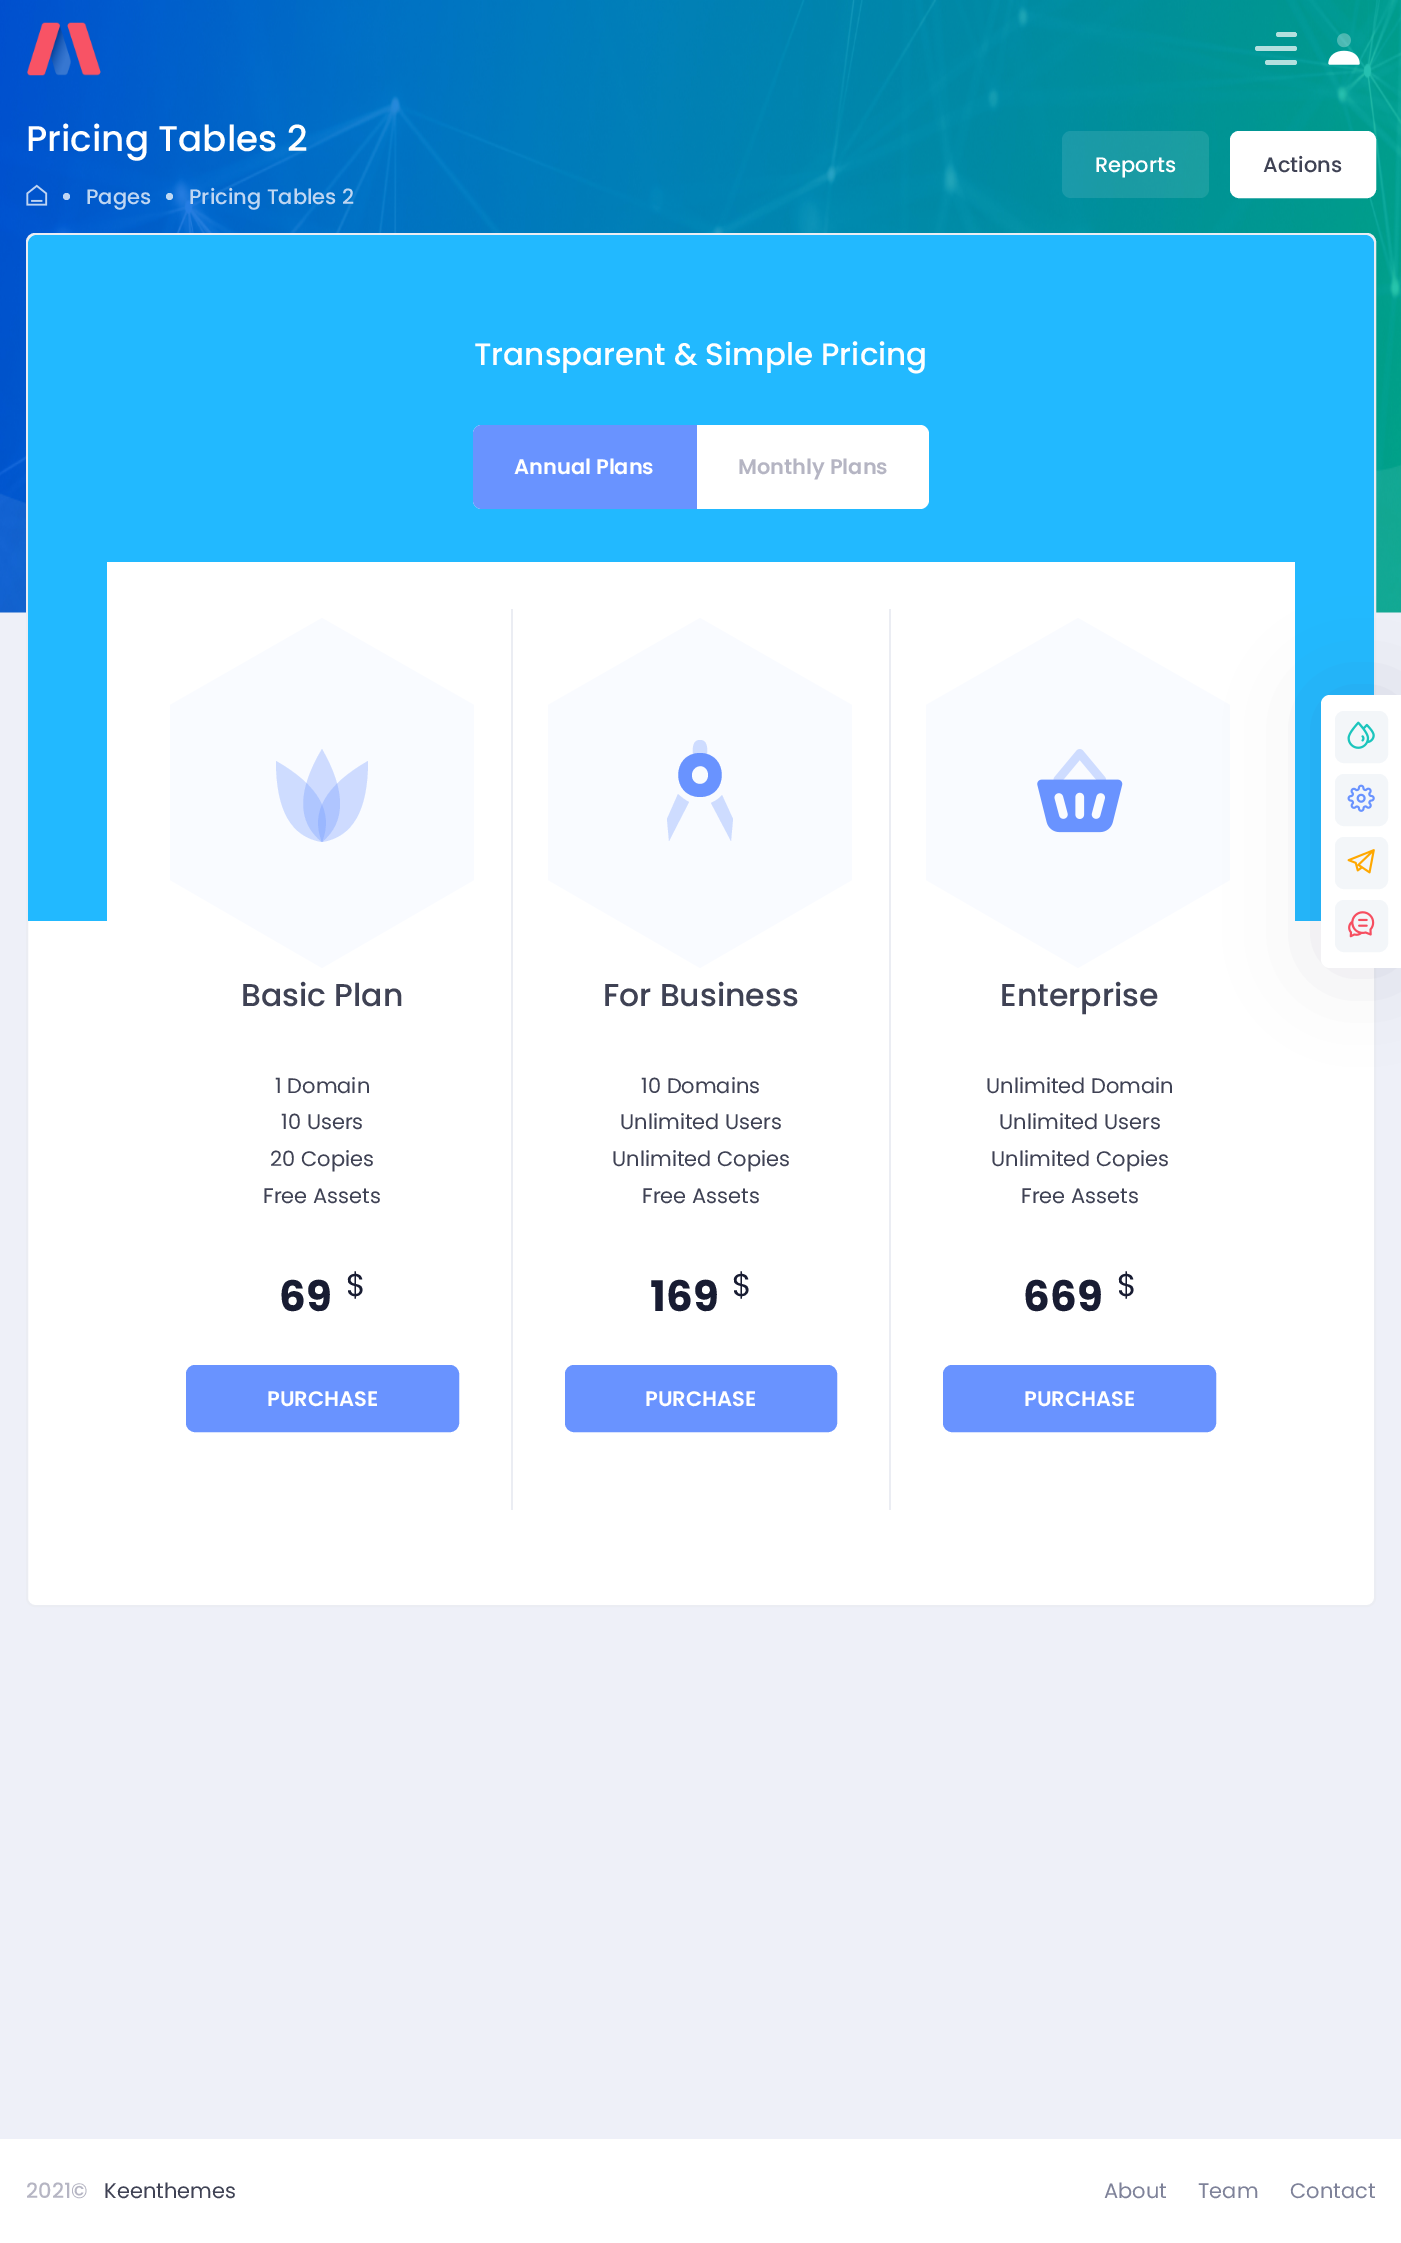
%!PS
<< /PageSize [1401 2243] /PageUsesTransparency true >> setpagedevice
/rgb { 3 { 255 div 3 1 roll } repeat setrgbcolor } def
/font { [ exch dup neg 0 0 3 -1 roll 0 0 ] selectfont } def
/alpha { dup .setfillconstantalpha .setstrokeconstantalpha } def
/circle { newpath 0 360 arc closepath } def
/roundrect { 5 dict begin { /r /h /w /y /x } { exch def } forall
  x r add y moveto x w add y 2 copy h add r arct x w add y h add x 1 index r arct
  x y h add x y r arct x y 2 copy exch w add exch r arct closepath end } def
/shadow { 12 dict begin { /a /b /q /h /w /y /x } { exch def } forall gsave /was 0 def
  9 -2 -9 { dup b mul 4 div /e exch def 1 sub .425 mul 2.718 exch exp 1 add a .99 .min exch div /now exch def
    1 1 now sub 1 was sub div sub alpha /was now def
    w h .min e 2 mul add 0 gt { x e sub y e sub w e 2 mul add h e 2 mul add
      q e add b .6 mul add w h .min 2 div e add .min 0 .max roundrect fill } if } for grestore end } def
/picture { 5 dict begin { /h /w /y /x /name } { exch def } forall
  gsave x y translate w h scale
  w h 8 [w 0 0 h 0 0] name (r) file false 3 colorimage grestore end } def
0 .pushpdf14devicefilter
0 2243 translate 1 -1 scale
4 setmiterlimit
238 240 248 rgb
0 0 1401 2243 rectfill
(img/1.rgb) 0 0 1401 613 picture
(img/2.rgb) 27 22 74 54 picture
0.7 alpha
255 255 255 rgb
1255 46 42 5 2.5 roundrect fill
gsave
1255 28 42 42 9 roundrect clip newpath
1 alpha
179 224 222 rgb
1276 32 21 5 2.5 roundrect fill
0.7 alpha
255 255 255 rgb
1265 60 32 5 2.5 roundrect fill
grestore
1 alpha
(img/3.rgb) 1328 33 32 32 picture
(img/4.rgb) 26 184 22 22 picture
191 213 243 rgb
66.5 196.5 3.5 circle fill
0.75 alpha
255 255 255 rgb
169.5 196.5 3.5 circle fill
0.1 alpha
1062 131 147 67 9 roundrect fill
1 alpha
1231 132 144 65 8 roundrect gsave fill grestore
2 setlinewidth
stroke
27 234 1348 1372 8 roundrect gsave fill grestore
235 237 243 rgb
stroke
34 185 255 rgb
37 235 moveto 1365 235 lineto 1370 235 1374 239 1374 244 curveto 1374 921 lineto 28 921 lineto 28 244 lineto 28 239 32 235 37 235 curveto closepath fill
255 255 255 rgb
473 425 456 84 9 roundrect fill
105 147 255 rgb
482 425 moveto 697 425 lineto 697 509 lineto 482 509 lineto 477 509 473 505 473 500 curveto 473 434 lineto 473 429 477 425 482 425 curveto closepath fill
255 255 255 rgb
107 562 1188 359 rectfill
210 223 255 rgb
276 761 moveto 318 785 334 812 322 842 curveto 291 837 276 810 276 761 curveto closepath eofill
0.3 alpha
105 147 255 rgb
368 761 moveto 326 785 310 812 322 842 curveto 353 837 368 810 368 761 curveto closepath eofill
322 749 moveto 297 791 297 822 322 842 curveto 346 822 346 791 322 749 curveto closepath eofill
0.04 alpha
322 618 moveto 474 705 lineto 474 880 lineto 322 968 lineto 170 880 lineto 170 705 lineto 322 618 lineto fill
1 alpha
187 1366 271 65 8 roundrect gsave fill grestore
stroke
235 237 243 rgb
889 609 2 901 rectfill
511 609 2 901 rectfill
210 223 255 rgb
678 794 moveto 681 797 685 800 689 802 curveto 669 841 lineto 667 819 lineto closepath 711 803 moveto 715 801 719 799 722 795 curveto 733 819 lineto 731 841 lineto closepath 700 740 moveto 709 740 707 752 707 758 curveto 693 758 lineto 693 752 691 740 700 740 curveto closepath eofill
105 147 255 rgb
700 784 moveto 711 784 711 766 700 766 curveto 689 767 689 784 700 784 curveto closepath 700 797 moveto 671 797 671 753 700 753 curveto 729 753 729 797 700 797 curveto closepath fill
0.04 alpha
700 618 moveto 852 705 lineto 852 880 lineto 700 968 lineto 548 880 lineto 548 705 lineto 700 618 lineto fill
1 alpha
566 1366 270 65 8 roundrect gsave fill grestore
stroke
(img/5.rgb) 1037 749 86 84 picture
0.04 alpha
1078 618 moveto 1230 705 lineto 1230 880 lineto 1078 968 lineto 926 880 lineto 926 705 lineto 1078 618 lineto fill
1 alpha
944 1366 271 65 8 roundrect gsave fill grestore
stroke
255 255 255 rgb
0 2139 1401 104 rectfill
82 63 105 rgb
1321 695 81 273 9 44 0.15 shadow
255 255 255 rgb
1330 695 moveto 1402 695 lineto 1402 968 lineto 1330 968 lineto 1325 968 1321 964 1321 959 curveto 1321 704 lineto 1321 699 1325 695 1330 695 curveto closepath fill
243 246 249 rgb
1336 712 51 50 8 roundrect gsave fill grestore
stroke
(img/6.rgb) 1347 721 28 28 picture
1336 775 51 50 8 roundrect gsave fill grestore
stroke
(img/7.rgb) 1347 784 28 28 picture
1336 838 51 50 8 roundrect gsave fill grestore
stroke
(img/8.rgb) 1347 849 28 25 picture
1336 901 51 50 8 roundrect gsave fill grestore
stroke
(img/9.rgb) 1348 911 27 27 picture
/Poppins-Medium 35.75 font
255 255 255 rgb
26 151 moveto (Pricing Tables 2) show
/Poppins-Medium 21 font
191 214 242 rgb
86 204 moveto (Pages) show
189 204 moveto (Pricing Tables 2) show
255 255 255 rgb
1095 172 moveto (Reports) show
63 66 84 rgb
1263 172 moveto (Actions) show
/Poppins-Medium 31 font
255 255 255 rgb
474 365 moveto (Transparent & Simple Pricing) show
/Poppins-SemiBold 21 font
514 474 moveto (Annual Plans) show
181 181 195 rgb
738 474 moveto (Monthly Plans) show
/Poppins-Medium 31.5 font
63 66 84 rgb
241 1006 moveto (Basic Plan) show
/Poppins-Regular 21 font
[
  [(1 Domain) 275 1093]
  [(10 Users) 281 1129]
  [(20 Copies) 270 1166]
  [(Free Assets) 263 1203]
] { aload pop moveto show } forall
/Poppins-Bold 42 font
24 28 50 rgb
279 1311 moveto (69) show
/Poppins-Regular 31.5 font
346 1296 moveto ($) show
/Poppins-SemiBold 21 font
255 255 255 rgb
267 1406 moveto (PURCHASE) show
/Poppins-Medium 31.5 font
63 66 84 rgb
603 1006 moveto (For Business) show
/Poppins-Regular 21 font
[
  [(10 Domains) 641 1093]
  [(Unlimited Users) 620 1129]
  [(Unlimited Copies) 612 1166]
  [(Free Assets) 642 1203]
] { aload pop moveto show } forall
/Poppins-Bold 42 font
24 28 50 rgb
650 1311 moveto (169) show
/Poppins-Regular 31.5 font
732 1296 moveto ($) show
/Poppins-SemiBold 21 font
255 255 255 rgb
645 1406 moveto (PURCHASE) show
/Poppins-Medium 31.5 font
63 66 84 rgb
1000 1006 moveto (Enterprise) show
/Poppins-Regular 21 font
[
  [(Unlimited Domain) 986 1093]
  [(Unlimited Users) 999 1129]
  [(Unlimited Copies) 991 1166]
  [(Free Assets) 1021 1203]
] { aload pop moveto show } forall
/Poppins-Bold 42 font
24 28 50 rgb
1023 1311 moveto (669) show
/Poppins-Regular 31.5 font
1117 1296 moveto ($) show
/Poppins-SemiBold 21 font
255 255 255 rgb
1024 1406 moveto (PURCHASE) show
/Poppins-Medium 21 font
181 181 195 rgb
26 2198 moveto (2021©) show
/Poppins-Regular 21 font
63 66 84 rgb
104 2198 moveto (Keenthemes) show
126 130 153 rgb
[
  [(About) 1104 2198]
  [(Team) 1198 2198]
  [(Contact) 1290 2198]
] { aload pop moveto show } forall
.poppdf14devicefilter showpage
